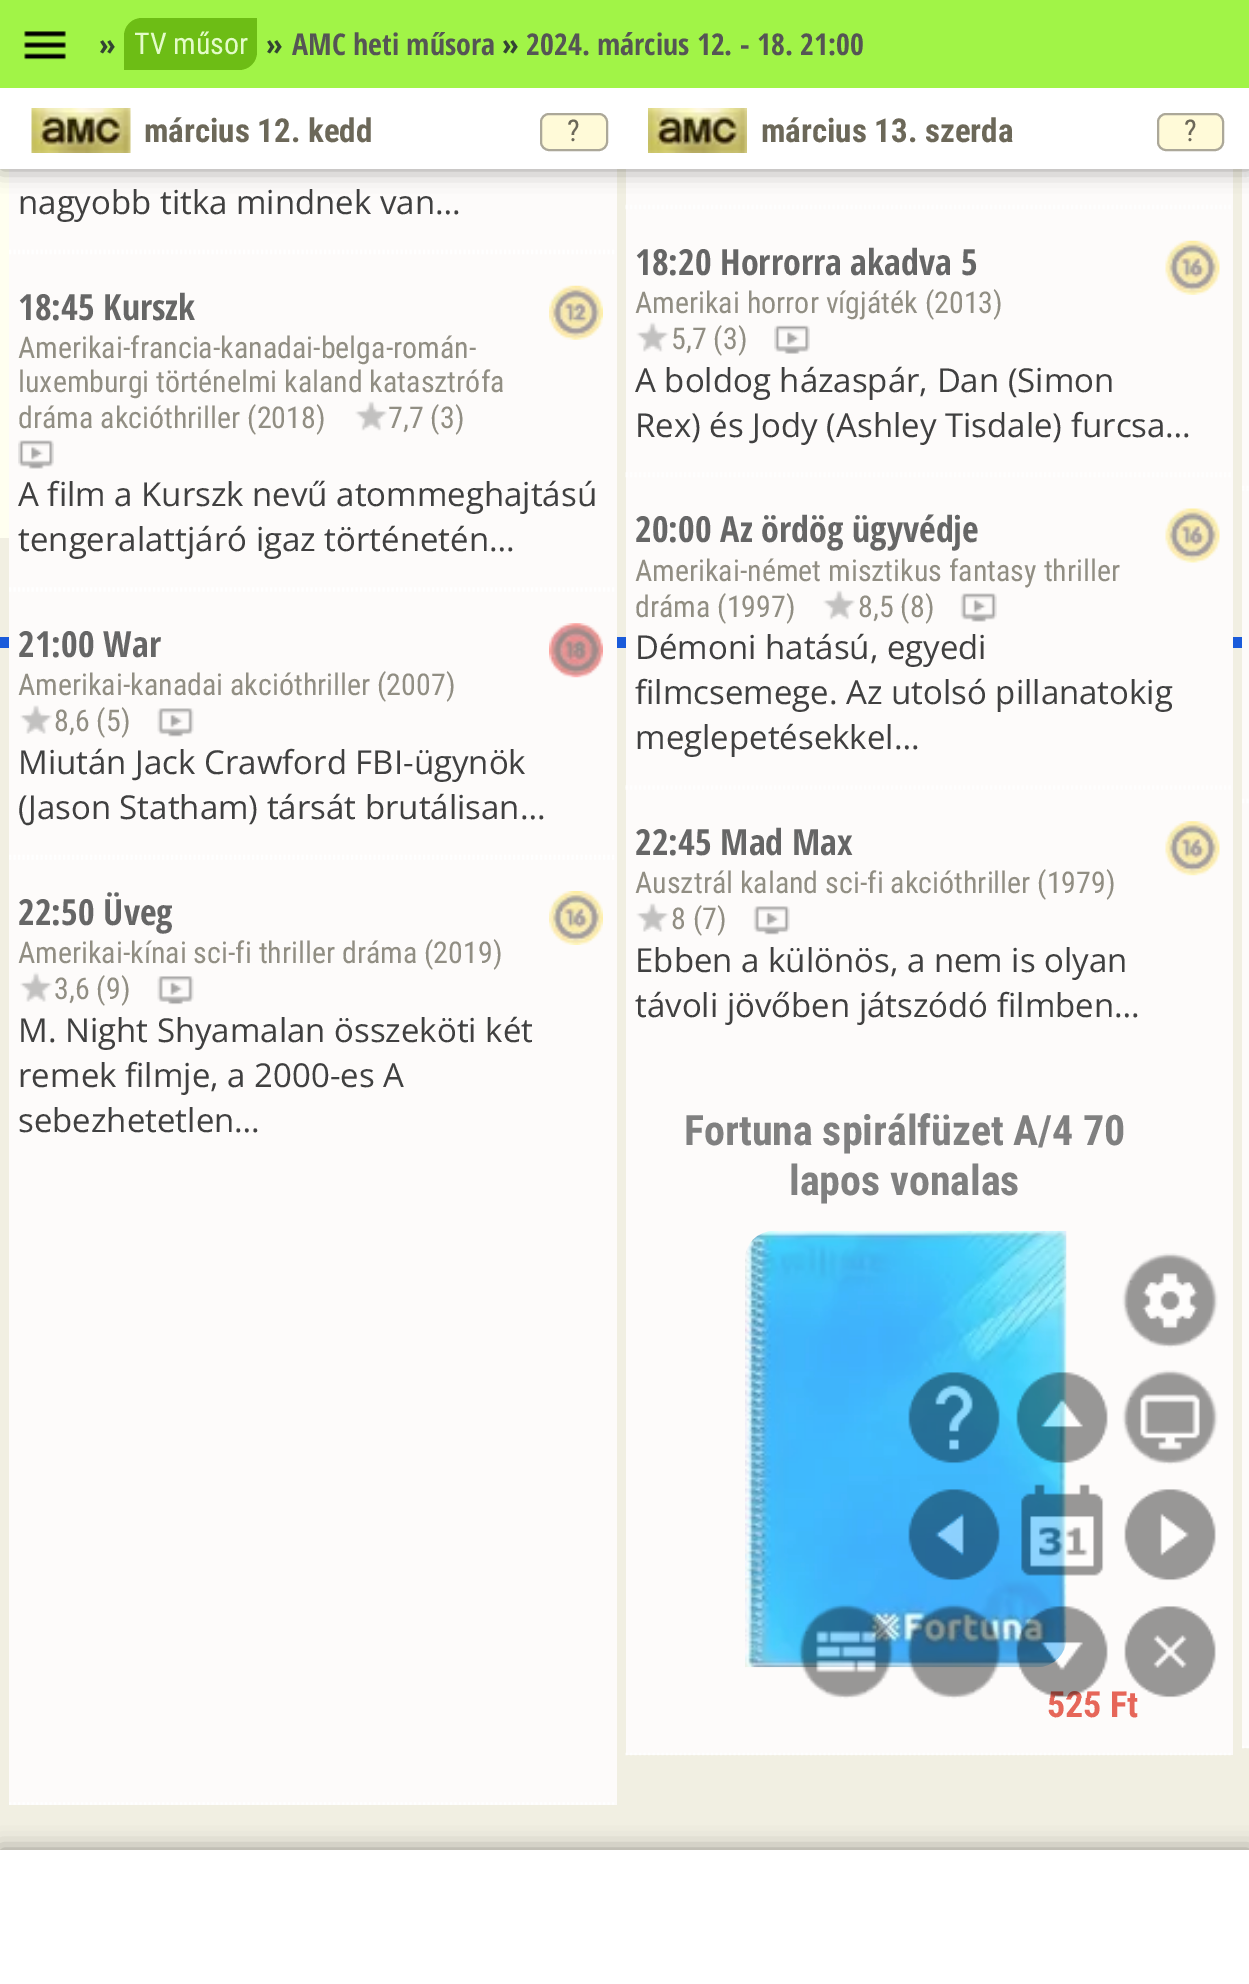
%!PS
<< /PageSize [1249 1984] /PageUsesTransparency true >> setpagedevice
/rgb { 3 { 255 div 3 1 roll } repeat setrgbcolor } def
/font { [ exch dup neg 0 0 3 -1 roll 0 0 ] selectfont } def
/alpha { dup .setfillconstantalpha .setstrokeconstantalpha } def
/roundrect { 5 dict begin { /r /h /w /y /x } { exch def } forall
  x r add y moveto x w add y 2 copy h add r arct x w add y h add x 1 index r arct
  x y h add x y r arct x y 2 copy exch w add exch r arct closepath end } def
/shadow { 12 dict begin { /a /b /q /h /w /y /x } { exch def } forall gsave /was 0 def
  9 -2 -9 { dup b mul 4 div /e exch def 1 sub .425 mul 2.718 exch exp 1 add a .99 .min exch div /now exch def
    1 1 now sub 1 was sub div sub alpha /was now def
    w h .min e 2 mul add 0 gt { x e sub y e sub w e 2 mul add h e 2 mul add
      q e add b .6 mul add w h .min 2 div e add .min 0 .max roundrect fill } if } for grestore end } def
/picture { 5 dict begin { /h /w /y /x /name } { exch def } forall
  gsave x y translate w h scale
  w h 8 [w 0 0 h 0 0] name (r) file false 3 colorimage grestore end } def
0 .pushpdf14devicefilter
0 1984 translate 1 -1 scale
4 setmiterlimit
241 239 226 rgb
0 0 1249 1984 rectfill
[
  [0 169 9 369 255 255 240]
  [9 169 608 83 253 251 250]
  [626 169 607 38 253 251 250]
  [1242 169 7 319 253 251 250]
] { aload pop rgb rectfill } forall
255 255 255 rgb
2.2 setlinewidth
[2.25 2.25] 0 setdash
1242 174.5 moveto 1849.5 174.5 lineto 1242 176.5 moveto 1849.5 176.5 lineto stroke
0 0 0 rgb
0 0 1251 169 0 11 0.4 shadow
255 255 255 rgb
0 88 1249 81 rectfill
161 244 71 rgb
0 0 1249 88 rectfill
(img/1.rgb) 24 31 42 29 picture
109 189 21 rgb
142 18 moveto 257 18 lineto 257 52 lineto 257 62 249 70 239 70 curveto 124 70 lineto 124 36 lineto 124 26 132 18 142 18 curveto closepath fill
(img/2.rgb) 31 108 100 45 picture
255 250 216 rgb
541 114 66 36 8 roundrect gsave fill grestore
172 168 153 rgb
2 setlinewidth
[] 0 setdash
stroke
(img/3.rgb) 648 108 99 45 picture
255 250 216 rgb
1158 114 65 36 8 roundrect gsave fill grestore
172 168 153 rgb
stroke
255 255 255 rgb
2.2 setlinewidth
[2.25 2.25] 0 setdash
9 251 moveto 616.5 251 lineto stroke
26 91 218 rgb
0 637 1242 11 rectfill
253 251 250 rgb
9 252 608 605 rectfill
255 255 255 rgb
9 253 moveto 616.5 253 lineto stroke
9 588.5 moveto 616.5 588.5 lineto stroke
(img/4.rgb) 549 285 54 55 picture
(img/5.rgb) 355 401 32 30 picture
(img/6.rgb) 18 440 36 29 picture
9 590.5 moveto 616.5 590.5 lineto stroke
9 856 moveto 616.5 856 lineto stroke
(img/7.rgb) 549 623 54 55 picture
(img/8.rgb) 20 705 32 29 picture
(img/9.rgb) 157 708 37 29 picture
253 251 250 rgb
9 857 608 948 rectfill
255 255 255 rgb
9 858.5 moveto 616.5 858.5 lineto stroke
9 1803.5 moveto 616.5 1803.5 lineto stroke
(img/10.rgb) 549 891 54 54 picture
(img/11.rgb) 20 972 32 30 picture
(img/12.rgb) 157 976 37 29 picture
0.75 alpha
625.5 206 moveto 1233 206 lineto stroke
1 alpha
253 251 250 rgb
626 207 607 1548 rectfill
0.75 alpha
255 255 255 rgb
625.5 208 moveto 1233 208 lineto stroke
625.5 473.5 moveto 1233 473.5 lineto stroke
1 alpha
(img/13.rgb) 1165 240 55 55 picture
(img/14.rgb) 636 322 33 30 picture
(img/15.rgb) 774 325 36 29 picture
0.75 alpha
625.5 476 moveto 1233 476 lineto stroke
625.5 786.5 moveto 1233 786.5 lineto stroke
1 alpha
(img/16.rgb) 1165 508 55 55 picture
(img/5.rgb) 823 590 32 30 picture
(img/17.rgb) 960 593 37 29 picture
0.75 alpha
625.5 788.5 moveto 1233 788.5 lineto stroke
625.5 1754 moveto 1233 1754 lineto stroke
1 alpha
(img/18.rgb) 1165 821 55 55 picture
(img/19.rgb) 636 903 33 29 picture
(img/20.rgb) 753 906 37 29 picture
(img/21.rgb) 745 1230 322 438 picture
1242 487 moveto 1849.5 487 lineto stroke
253 251 250 rgb
1242 488 7 313 rectfill
255 255 255 rgb
1242 489.5 moveto 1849.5 489.5 lineto stroke
1242 800 moveto 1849.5 800 lineto stroke
253 251 250 rgb
1242 801 7 947 rectfill
255 255 255 rgb
1242 802 moveto 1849.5 802 lineto stroke
1242 1747 moveto 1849.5 1747 lineto stroke
(img/22.rgb) 1122 1253 96 95 picture
(img/23.rgb) 908 1372 92 92 picture
(img/24.rgb) 1016 1372 92 92 picture
(img/25.rgb) 1122 1370 96 95 picture
(img/26.rgb) 908 1489 92 92 picture
(img/27.rgb) 1021 1484 83 92 picture
(img/28.rgb) 1124 1489 92 92 picture
(img/29.rgb) 798 1604 96 95 picture
(img/30.rgb) 906 1604 96 95 picture
0 0 0 rgb
0 1850 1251 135 0 11 0.4 shadow
255 255 255 rgb
0 1850 1249 134 rectfill
/OpenSansCondensed-Bold 30 font
51 68 51 rgb
99 55 moveto (») show
/RobotoCondensed-Regular 30 font
227 252 200 rgb
134 54 moveto (TV műsor) show
/OpenSansCondensed-Bold 30 font
51 68 51 rgb
266 55 moveto (») show
85 85 85 rgb
292 55 moveto (AMC heti műsora) show
51 68 51 rgb
502 55 moveto (») show
85 85 85 rgb
526 55 moveto (2024. március 12. - 18. 21:00) show
/RobotoCondensed-Bold 33 font
108 104 89 rgb
144 142 moveto (március 12. kedd) show
/RobotoCondensed-Regular 30 font
567 141 moveto (?) show
/RobotoCondensed-Bold 33 font
761 142 moveto (március 13. szerda) show
/RobotoCondensed-Regular 30 font
1184 141 moveto (?) show
/OpenSans-Regular 33 font
64 64 64 rgb
18 214 moveto (nagyobb titka mindnek van…) show
/OpenSansCondensed-Bold 36 font
102 102 102 rgb
18 320 moveto (18:45 Kurszk) show
/RobotoCondensed-Regular 30 font
145 142 131 rgb
[
  [(Amerikai-francia-kanadai-belga-román-) 18 358]
  [(luxemburgi történelmi kaland katasztrófa) 18 392]
  [(dráma akcióthriller \(2018\)) 18 428]
  [(7,7 \(3\)) 388 428]
] { aload pop moveto show } forall
/OpenSans-Regular 33 font
64 64 64 rgb
18 506 moveto (A film a Kurszk nevű atommeghajtású) show
18 551 moveto (tengeralattjáró igaz történetén…) show
/OpenSansCondensed-Bold 36 font
102 102 102 rgb
18 657 moveto (21:00 War) show
/RobotoCondensed-Regular 30 font
145 142 131 rgb
18 695 moveto (Amerikai-kanadai akcióthriller \(2007\)) show
54 731 moveto (8,6 \(5\)) show
/OpenSans-Regular 33 font
64 64 64 rgb
18 774 moveto (Miután Jack Crawford FBI-ügynök) show
18 819 moveto (\(Jason Statham\) társát brutálisan…) show
/OpenSansCondensed-Bold 36 font
102 102 102 rgb
18 925 moveto (22:50 Üveg) show
/RobotoCondensed-Regular 30 font
145 142 131 rgb
18 963 moveto (Amerikai-kínai sci-fi thriller dráma \(2019\)) show
54 999 moveto (3,6 \(9\)) show
/OpenSans-Regular 33 font
64 64 64 rgb
[
  [(M. Night Shyamalan összeköti két) 18 1042]
  [(remek filmje, a 2000-es A) 18 1087]
  [(sebezhetetlen…) 18 1132]
] { aload pop moveto show } forall
/OpenSansCondensed-Bold 36 font
102 102 102 rgb
635 275 moveto (18:20 Horrorra akadva 5) show
/RobotoCondensed-Regular 30 font
145 142 131 rgb
635 313 moveto (Amerikai horror vígjáték \(2013\)) show
671 349 moveto (5,7 \(3\)) show
/OpenSans-Regular 33 font
64 64 64 rgb
635 392 moveto (A boldog házaspár, Dan \(Simon) show
635 437 moveto (Rex\) és Jody \(Ashley Tisdale\) furcsa…) show
/OpenSansCondensed-Bold 36 font
102 102 102 rgb
635 542 moveto (20:00 Az ördög ügyvédje) show
/RobotoCondensed-Regular 30 font
145 142 131 rgb
[
  [(Amerikai-német misztikus fantasy thriller) 635 581]
  [(dráma \(1997\)) 635 617]
  [(8,5 \(8\)) 858 617]
] { aload pop moveto show } forall
/OpenSans-Regular 33 font
64 64 64 rgb
[
  [(Démoni hatású, egyedi) 635 659]
  [(filmcsemege. Az utolsó pillanatokig) 635 704]
  [(meglepetésekkel…) 635 749]
] { aload pop moveto show } forall
/OpenSansCondensed-Bold 36 font
102 102 102 rgb
635 855 moveto (22:45 Mad Max) show
/RobotoCondensed-Regular 30 font
145 142 131 rgb
635 893 moveto (Ausztrál kaland sci-fi akcióthriller \(1979\)) show
671 929 moveto (8 \(7\)) show
/OpenSans-Regular 33 font
64 64 64 rgb
635 972 moveto (Ebben a különös, a nem is olyan) show
635 1017 moveto (távoli jövőben játszódó filmben…) show
/RobotoCondensed-Bold 42 font
128 128 128 rgb
684 1145 moveto (Fortuna spirálfüzet A/4 70) show
789 1195 moveto (lapos vonalas) show
/RobotoCondensed-Bold 36 font
230 102 89 rgb
1047 1717 moveto (525 Ft) show
(img/31.rgb) 1016 1606 92 92 picture
(img/32.rgb) 1124 1606 92 92 picture
.poppdf14devicefilter showpage
